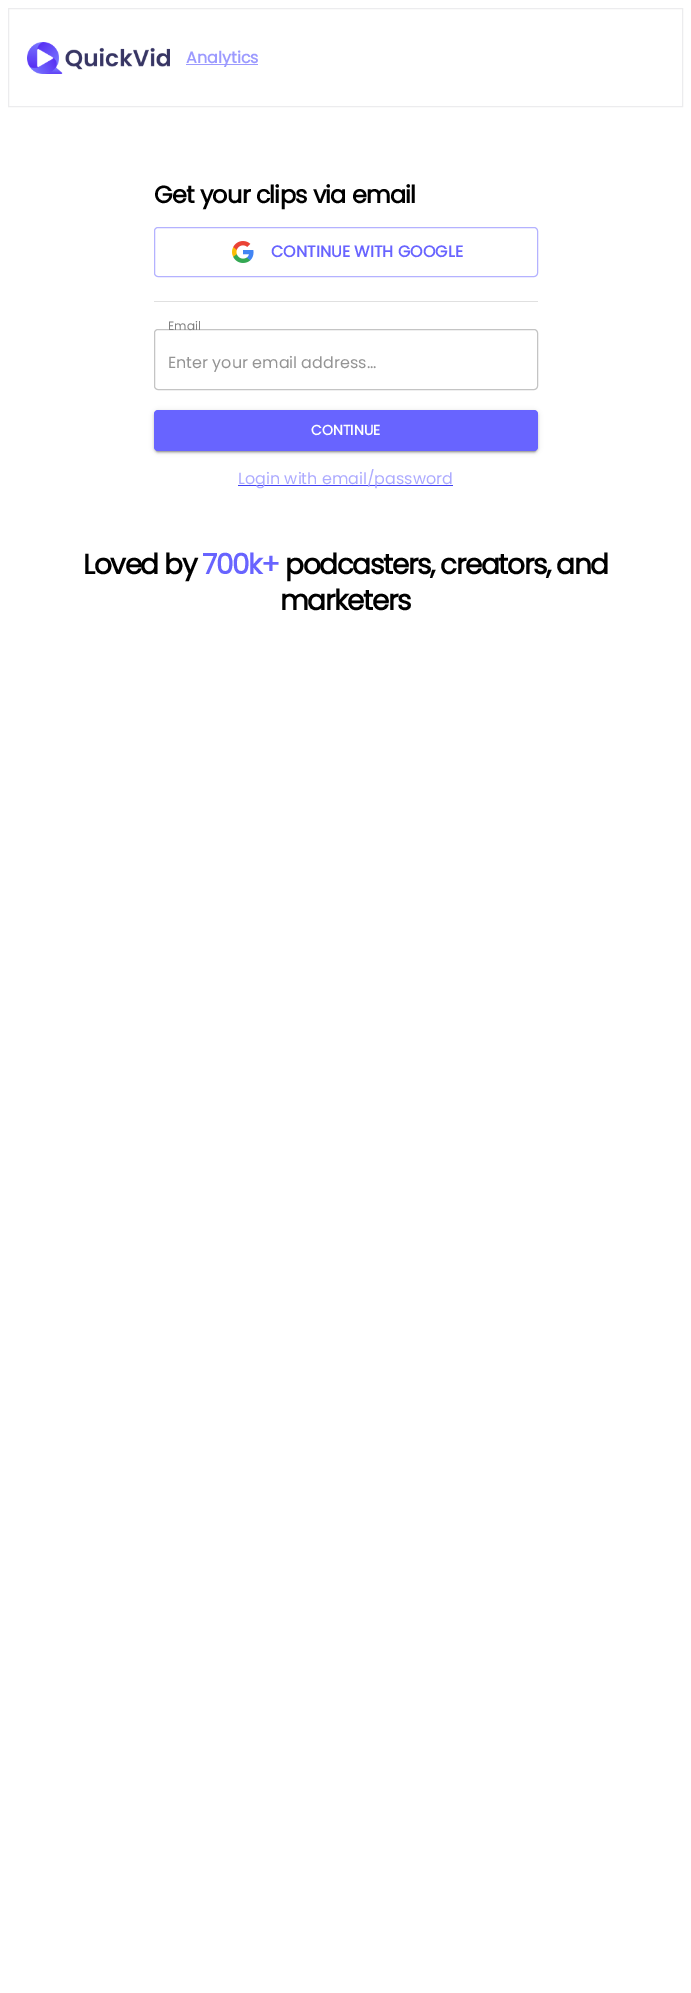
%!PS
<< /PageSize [691 1993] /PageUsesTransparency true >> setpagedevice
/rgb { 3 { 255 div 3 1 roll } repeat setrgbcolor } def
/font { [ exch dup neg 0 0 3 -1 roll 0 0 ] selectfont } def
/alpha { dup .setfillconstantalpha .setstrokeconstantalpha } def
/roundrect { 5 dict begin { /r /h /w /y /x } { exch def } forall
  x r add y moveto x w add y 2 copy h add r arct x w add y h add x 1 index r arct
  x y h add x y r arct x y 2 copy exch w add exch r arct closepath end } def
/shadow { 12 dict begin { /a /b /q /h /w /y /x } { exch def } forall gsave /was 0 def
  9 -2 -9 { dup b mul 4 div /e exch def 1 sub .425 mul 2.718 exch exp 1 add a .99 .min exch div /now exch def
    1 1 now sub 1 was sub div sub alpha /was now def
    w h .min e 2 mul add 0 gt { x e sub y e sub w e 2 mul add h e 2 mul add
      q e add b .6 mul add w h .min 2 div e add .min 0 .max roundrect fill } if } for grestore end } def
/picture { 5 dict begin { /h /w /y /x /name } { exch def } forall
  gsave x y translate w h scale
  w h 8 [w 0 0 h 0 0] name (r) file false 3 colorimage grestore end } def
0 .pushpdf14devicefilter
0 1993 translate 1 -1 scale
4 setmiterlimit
255 255 255 rgb
0 0 691 1993 rectfill
236 236 238 rgb
8.5 8.5 674 98 rectstroke
(img/1.rgb) 27 42 143 32 picture
156 154 255 rgb
186 64 72 1 rectfill
180 178 255 rgb
154.5 227.5 383 49 3.5 roundrect stroke
(img/2.rgb) 232 241 22 22 picture
224 224 224 rgb
154 301 384 1 rectfill
196 196 196 rgb
154.5 329.5 383 60 3.5 roundrect stroke
0 0 0 rgb
154 411 384 41 4 2.5 0.12 shadow
154 412 384 41 4 1 0.14 shadow
156 415 380 37 2 0.5 0.2 shadow
104 100 255 rgb
154 410 384 41 4 roundrect fill
64 64 242 rgb
238 485 215 1 rectfill
/Poppins-Bold 16 font
156 154 255 rgb
186 63 moveto (Analytics) show
/Poppins-Bold 24 font
0 0 0 rgb
154 203 moveto -0.75 0 (Get your clips via email) ashow
/Poppins-Bold 16 font
104 100 255 rgb
271 257 moveto (CONTINUE WITH GOOGLE) show
/Poppins-Regular 12 font
128 128 128 rgb
168 330 moveto (Email) show
/Poppins-Regular 16 font
148 148 148 rgb
168 368 moveto (Enter your email address...) show
/Poppins-Bold 14 font
255 255 255 rgb
311 435 moveto (CONTINUE) show
/Poppins-Regular 16 font
173 171 255 rgb
238 484 moveto (Login with email/password) show
/Poppins-Bold 28 font
0 0 0 rgb
83 574 moveto -1.4 0 (Loved by) ashow
104 100 255 rgb
202 574 moveto -1.4 0 (700k+) ashow
0 0 0 rgb
285 574 moveto -1.4 0 (podcasters, creators, and) ashow
280 610 moveto -1.4 0 (marketers) ashow
.poppdf14devicefilter showpage
